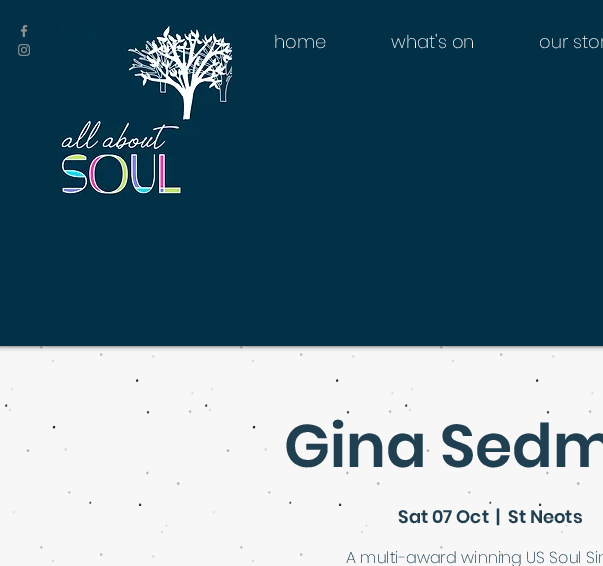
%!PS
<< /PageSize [603 566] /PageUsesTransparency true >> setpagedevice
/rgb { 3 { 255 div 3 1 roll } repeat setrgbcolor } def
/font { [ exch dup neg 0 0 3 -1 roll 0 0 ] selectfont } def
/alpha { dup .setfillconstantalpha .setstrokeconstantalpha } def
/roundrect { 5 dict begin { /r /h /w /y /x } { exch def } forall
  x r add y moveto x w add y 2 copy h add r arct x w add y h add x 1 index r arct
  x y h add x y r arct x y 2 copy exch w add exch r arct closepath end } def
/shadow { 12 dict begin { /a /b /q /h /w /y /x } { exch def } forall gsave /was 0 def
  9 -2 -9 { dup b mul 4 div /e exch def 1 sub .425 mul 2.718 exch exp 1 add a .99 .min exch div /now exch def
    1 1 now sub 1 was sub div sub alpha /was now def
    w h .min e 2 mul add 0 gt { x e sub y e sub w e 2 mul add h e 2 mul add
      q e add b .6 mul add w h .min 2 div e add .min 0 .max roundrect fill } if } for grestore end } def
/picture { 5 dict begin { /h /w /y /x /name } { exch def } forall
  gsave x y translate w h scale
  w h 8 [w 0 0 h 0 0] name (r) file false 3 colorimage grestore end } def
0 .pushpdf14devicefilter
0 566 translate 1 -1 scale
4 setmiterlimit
247 247 247 rgb
0 0 603 566 rectfill
(img/4.rgb) 5 346 589 217 picture
0 0 0 rgb
0 0 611 346 0 2.5 0.7 shadow
1 48 71 rgb
0 0 603 346 rectfill
(img/1.rgb) 20 24 8 14 picture
(img/2.rgb) 17 43 13 13 picture
(img/3.rgb) 60 23 172 172 picture
/Poppins-ExtraLight 18 font
246 247 248 rgb
[
  [(home) 274 48]
  [(what's on) 391 48]
  [(our stor) 539 48]
] { aload pop moveto show } forall
/Poppins-SemiBold 60 font
32 64 81 rgb
284 467 moveto (Gina Sedm) show
/Poppins-SemiBold 18 font
[
  [(Sat 07 Oct) 398 523]
  [(|) 496 523]
  [(St Neots) 508 523]
] { aload pop moveto show } forall
/Poppins-ExtraLight 16 font
346 563 moveto (A multi-award winning US Soul Sin) show
.poppdf14devicefilter showpage
